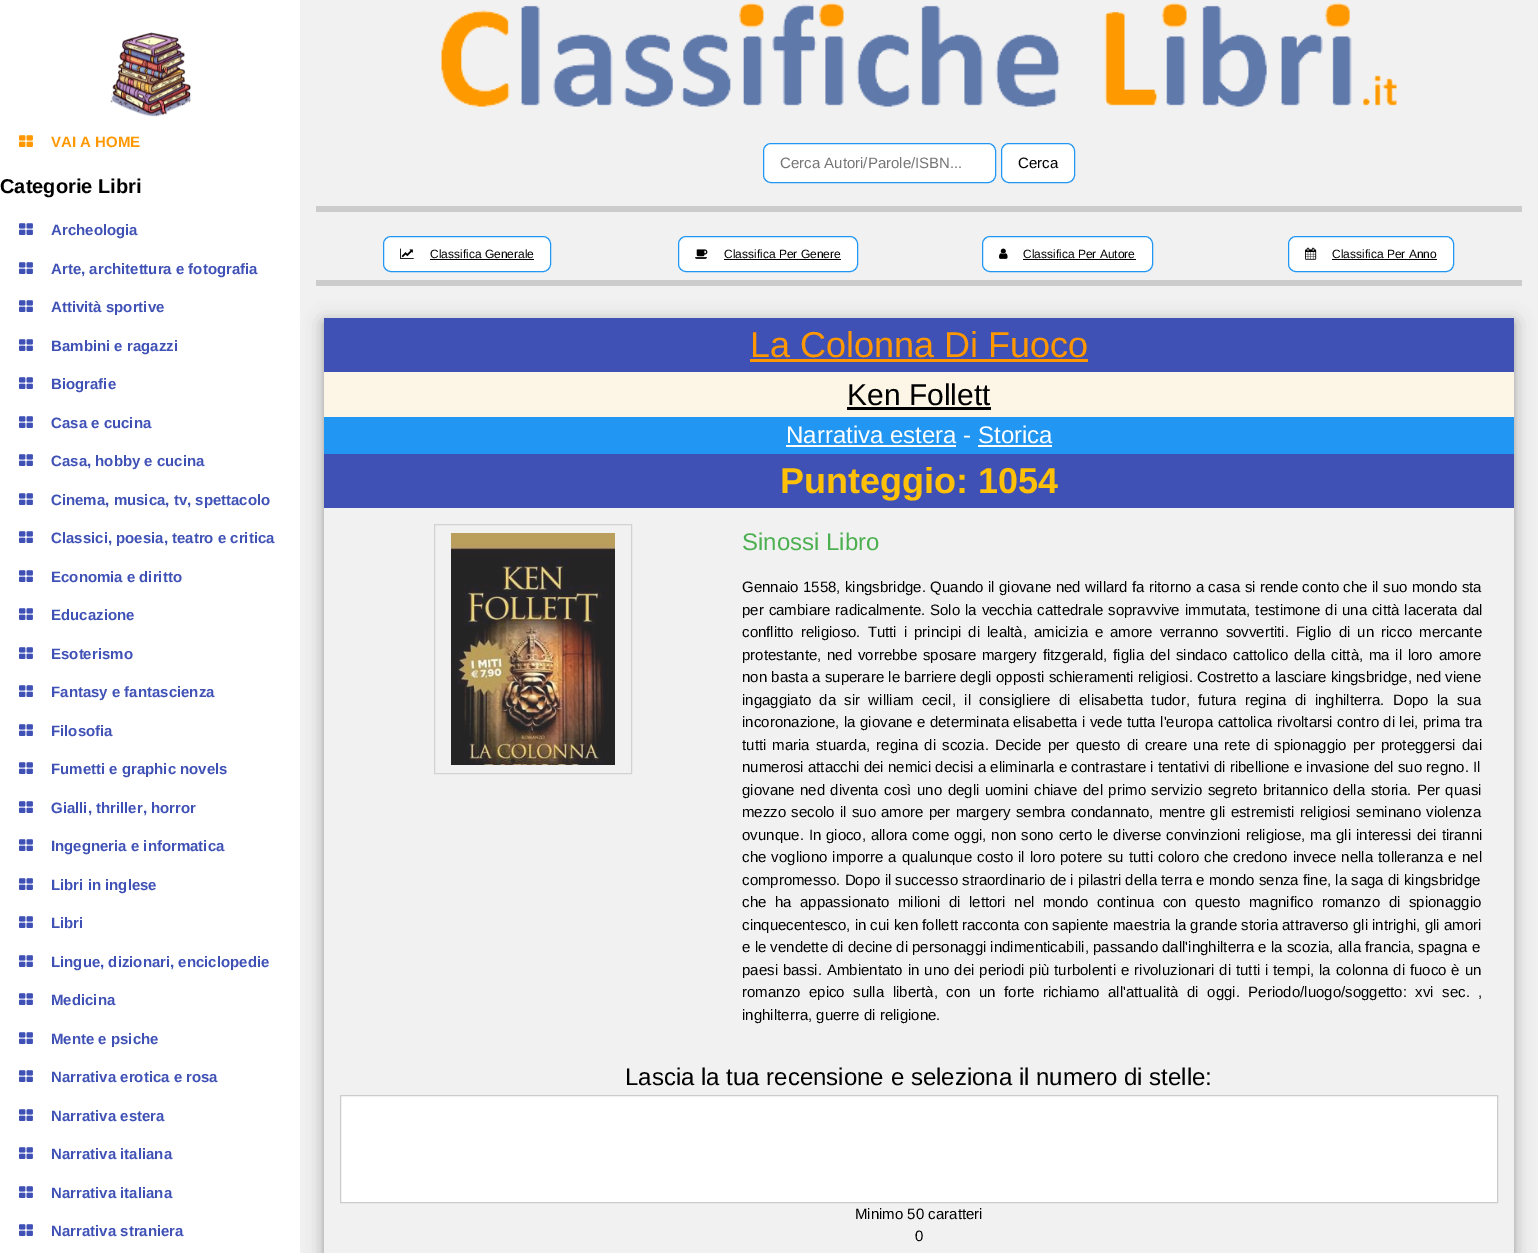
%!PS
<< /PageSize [1538 1253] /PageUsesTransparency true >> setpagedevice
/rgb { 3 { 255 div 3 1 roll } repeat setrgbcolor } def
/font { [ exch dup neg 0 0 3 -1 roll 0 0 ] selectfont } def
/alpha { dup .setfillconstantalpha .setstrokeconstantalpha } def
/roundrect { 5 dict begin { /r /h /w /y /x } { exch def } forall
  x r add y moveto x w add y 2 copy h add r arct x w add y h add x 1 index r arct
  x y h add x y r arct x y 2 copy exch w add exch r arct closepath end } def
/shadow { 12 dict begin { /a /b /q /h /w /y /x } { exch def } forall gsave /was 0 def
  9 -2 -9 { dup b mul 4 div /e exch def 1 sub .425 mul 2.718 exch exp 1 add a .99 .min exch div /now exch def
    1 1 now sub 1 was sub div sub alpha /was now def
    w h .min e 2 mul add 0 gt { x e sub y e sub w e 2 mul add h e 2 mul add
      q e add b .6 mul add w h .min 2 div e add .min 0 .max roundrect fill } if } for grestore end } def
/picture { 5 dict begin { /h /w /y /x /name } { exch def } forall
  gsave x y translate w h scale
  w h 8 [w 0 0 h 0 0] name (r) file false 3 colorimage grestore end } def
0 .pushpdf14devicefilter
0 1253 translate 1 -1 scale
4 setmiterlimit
241 241 241 rgb
0 0 1538 1253 rectfill
gsave
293 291 moveto 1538 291 lineto 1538 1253 lineto 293 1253 lineto closepath 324 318 moveto 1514 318 lineto 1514 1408 lineto 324 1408 lineto closepath eoclip newpath
0 0 0 rgb
324 322 1190 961 0 10 0.19 shadow
grestore
255 255 255 rgb
0 0 300 1253 rectfill
(img/1.rgb) 110 32 82 85 picture
(img/2.rgb) 19 135 14 12 picture
(img/3.rgb) 19 223 14 12 picture
(img/3.rgb) 19 262 14 12 picture
(img/3.rgb) 19 300 14 12 picture
(img/3.rgb) 19 339 14 12 picture
(img/3.rgb) 19 377 14 12 picture
(img/3.rgb) 19 416 14 12 picture
(img/3.rgb) 19 454 14 12 picture
(img/3.rgb) 19 493 14 12 picture
(img/3.rgb) 19 531 14 12 picture
(img/3.rgb) 19 570 14 12 picture
(img/3.rgb) 19 608 14 12 picture
(img/3.rgb) 19 647 14 12 picture
(img/3.rgb) 19 685 14 12 picture
(img/3.rgb) 19 724 14 12 picture
(img/3.rgb) 19 762 14 12 picture
(img/3.rgb) 19 801 14 12 picture
(img/3.rgb) 19 839 14 12 picture
(img/3.rgb) 19 878 14 12 picture
(img/3.rgb) 19 916 14 12 picture
(img/3.rgb) 19 955 14 12 picture
(img/3.rgb) 19 993 14 12 picture
(img/3.rgb) 19 1032 14 12 picture
(img/3.rgb) 19 1070 14 12 picture
(img/3.rgb) 19 1109 14 12 picture
(img/3.rgb) 19 1147 14 12 picture
(img/3.rgb) 19 1186 14 12 picture
(img/3.rgb) 19 1224 14 12 picture
(img/4.rgb) 441 2 956 105 picture
204 204 204 rgb
316 206 1206 6 rectfill
255 255 255 rgb
763.5 143.5 232 39 7.5 roundrect gsave fill grestore
33 150 243 rgb
stroke
255 255 255 rgb
1001.5 143.5 73 39 7.5 roundrect gsave fill grestore
33 150 243 rgb
stroke
204 204 204 rgb
316 280 1206 6 rectfill
255 255 255 rgb
383.5 236.5 167 35 7.5 roundrect gsave fill grestore
33 150 243 rgb
stroke
(img/5.rgb) 400 248 14 11 picture
0 0 0 rgb
430 259 104 1 rectfill
255 255 255 rgb
678.5 236.5 179 35 7.5 roundrect gsave fill grestore
33 150 243 rgb
stroke
(img/6.rgb) 695 249 13 10 picture
0 0 0 rgb
724 259 117 1 rectfill
255 255 255 rgb
982.5 236.5 170 35 7.5 roundrect gsave fill grestore
33 150 243 rgb
stroke
(img/7.rgb) 999 248 9 11 picture
0 0 0 rgb
1023 259 113 1 rectfill
255 255 255 rgb
1288.5 236.5 165 35 7.5 roundrect gsave fill grestore
33 150 243 rgb
stroke
(img/8.rgb) 1305 247 12 13 picture
0 0 0 rgb
1332 259 105 1 rectfill
gsave
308 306 moveto 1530 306 lineto 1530 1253 lineto 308 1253 lineto closepath 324 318 moveto 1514 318 lineto 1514 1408 lineto 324 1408 lineto closepath eoclip newpath
324 322 1190 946 0 5 0.2 shadow
grestore
[
  [324 318 1190 54 63 81 181]
  [750 359 338 3 255 152 0]
  [324 372 1190 45 253 245 230]
  [847 407 144 3 0 0 0]
  [324 417 1190 37 33 150 243]
  [786 445 170 2 255 255 255]
  [978 445 74 2 255 255 255]
  [324 454 1190 54 63 81 181]
] { aload pop rgb rectfill } forall
210 210 210 rgb
434.5 524.5 197 249 rectstroke
(img/9.rgb) 451 533 164 232 picture
255 255 255 rgb
340.5 1095.5 moveto 1497.5 1095.5 lineto 1497.5 1202.5 lineto 340.5 1202.5 lineto closepath gsave fill grestore
204 204 204 rgb
stroke
/LiberationSans-Bold 15 font
255 152 0 rgb
51 147 moveto (VAI A HOME) show
/LiberationSans-Bold 20 font
0 0 0 rgb
0 193 moveto (Categorie Libri) show
/LiberationSans-Bold 15 font
63 81 181 rgb
[
  [(Archeologia) 51 235]
  [(Arte, architettura e fotografia) 51 274]
  [(Attività sportive) 51 312]
  [(Bambini e ragazzi) 51 351]
  [(Biografie) 51 389]
  [(Casa e cucina) 51 428]
  [(Casa, hobby e cucina) 51 466]
  [(Cinema, musica, tv, spettacolo) 51 505]
  [(Classici, poesia, teatro e critica) 51 543]
  [(Economia e diritto) 51 582]
  [(Educazione) 51 620]
  [(Esoterismo) 51 659]
  [(Fantasy e fantascienza) 51 697]
  [(Filosofia) 51 736]
  [(Fumetti e graphic novels) 51 774]
  [(Gialli, thriller, horror) 51 813]
  [(Ingegneria e informatica) 51 851]
  [(Libri in inglese) 51 890]
  [(Libri) 51 928]
  [(Lingue, dizionari, enciclopedie) 51 967]
  [(Medicina) 51 1005]
  [(Mente e psiche) 51 1044]
  [(Narrativa erotica e rosa) 51 1082]
  [(Narrativa estera) 51 1121]
  [(Narrativa italiana) 51 1159]
  [(Narrativa italiana) 51 1198]
  [(Narrativa straniera) 51 1236]
] { aload pop moveto show } forall
/LiberationSans-Regular 15 font
117 117 117 rgb
780 168 moveto (Cerca Autori/Parole/ISBN...) show
0 0 0 rgb
1018 168 moveto (Cerca) show
/LiberationSans-Regular 12 font
[
  [(Classifica Generale) 430 258]
  [(Classifica Per Genere) 724 258]
  [(Classifica Per Autore) 1023 258]
  [(Classifica Per Anno) 1332 258]
] { aload pop moveto show } forall
/LiberationSans-Regular 36 font
255 152 0 rgb
750 357 moveto (La Colonna Di Fuoco) show
/LiberationSans-Regular 30 font
0 0 0 rgb
847 405 moveto (Ken Follett) show
/LiberationSans-Regular 24 font
255 255 255 rgb
786 443 moveto (Narrativa estera - Storica) show
/LiberationSans-Bold 36 font
255 193 7 rgb
780 493 moveto (Punteggio: 1054) show
/LiberationSans-Regular 24 font
76 175 80 rgb
742 550 moveto (Sinossi Libro) show
/LiberationSans-Regular 15 font
0 0 0 rgb
742 592 moveto 0.2 0 32 (Gennaio 1558, kingsbridge. Quando il giovane ned willard fa ritorno a casa si rende conto che il suo mondo sta) widthshow
742 615 moveto 0.75 0 32 (per cambiare radicalmente. Solo la vecchia cattedrale sopravvive immutata, testimone di una città lacerata dal) widthshow
742 637 moveto 2.75 0 32 (conflitto religioso. Tutti i principi di lealtà, amicizia e amore verranno sovvertiti. Figlio di un ricco mercante) widthshow
742 660 moveto 1.6 0 32 (protestante, ned vorrebbe sposare margery fitzgerald, figlia del sindaco cattolico della città, ma il loro amore) widthshow
742 682 moveto 0.1 0 32 (non basta a superare le barriere degli opposti schieramenti religiosi. Costretto a lasciare kingsbridge, ned viene) widthshow
742 705 moveto 4.1 0 32 (ingaggiato da sir william cecil, il consigliere di elisabetta tudor, futura regina di inghilterra. Dopo la sua) widthshow
742 727 moveto 0.25 0 32 (incoronazione, la giovane e determinata elisabetta i vede tutta l'europa cattolica rivoltarsi contro di lei, prima tra) widthshow
742 750 moveto 2 0 32 (tutti maria stuarda, regina di scozia. Decide per questo di creare una rete di spionaggio per proteggersi dai) widthshow
742 772 moveto (numerosi attacchi dei nemici decisi a eliminarla e contrastare i tentativi di ribellione e invasione del suo regno. Il) show
742 795 moveto 1.25 0 32 (giovane ned diventa così uno degli uomini chiave del primo servizio segreto britannico della storia. Per quasi) widthshow
742 817 moveto 1 0 32 (mezzo secolo il suo amore per margery sembra condannato, mentre gli estremisti religiosi seminano violenza) widthshow
742 840 moveto 0.7 0 32 (ovunque. In gioco, allora come oggi, non sono certo le diverse convinzioni religiose, ma gli interessi dei tiranni) widthshow
742 862 moveto 1 0 32 (che vogliono imporre a qualunque costo il loro potere su tutti coloro che credono invece nella tolleranza e nel) widthshow
742 885 moveto (compromesso. Dopo il successo straordinario de i pilastri della terra e mondo senza fine, la saga di kingsbridge) show
742 907 moveto 4.4 0 32 (che ha appassionato milioni di lettori nel mondo continua con questo magnifico romanzo di spionaggio) widthshow
742 930 moveto (cinquecentesco, in cui ken follett racconta con sapiente maestria la grande storia attraverso gli intrighi, gli amori) show
742 952 moveto (e le vendette di decine di personaggi indimenticabili, passando dall'inghilterra e la scozia, alla francia, spagna e) show
742 975 moveto 0.8 0 32 (paesi bassi. Ambientato in uno dei periodi più turbolenti e rivoluzionari di tutti i tempi, la colonna di fuoco è un) widthshow
742 997 moveto 4.4 0 32 (romanzo epico sulla libertà, con un forte richiamo all'attualità di oggi. Periodo/luogo/soggetto: xvi sec. ,) widthshow
742 1020 moveto (inghilterra, guerre di religione.) show
/LiberationSans-Regular 24 font
625 1085 moveto (Lascia la tua recensione e seleziona il numero di stelle:) show
/LiberationSans-Regular 15 font
855 1219 moveto (Minimo 50 caratteri) show
915 1241 moveto (0) show
.poppdf14devicefilter showpage
